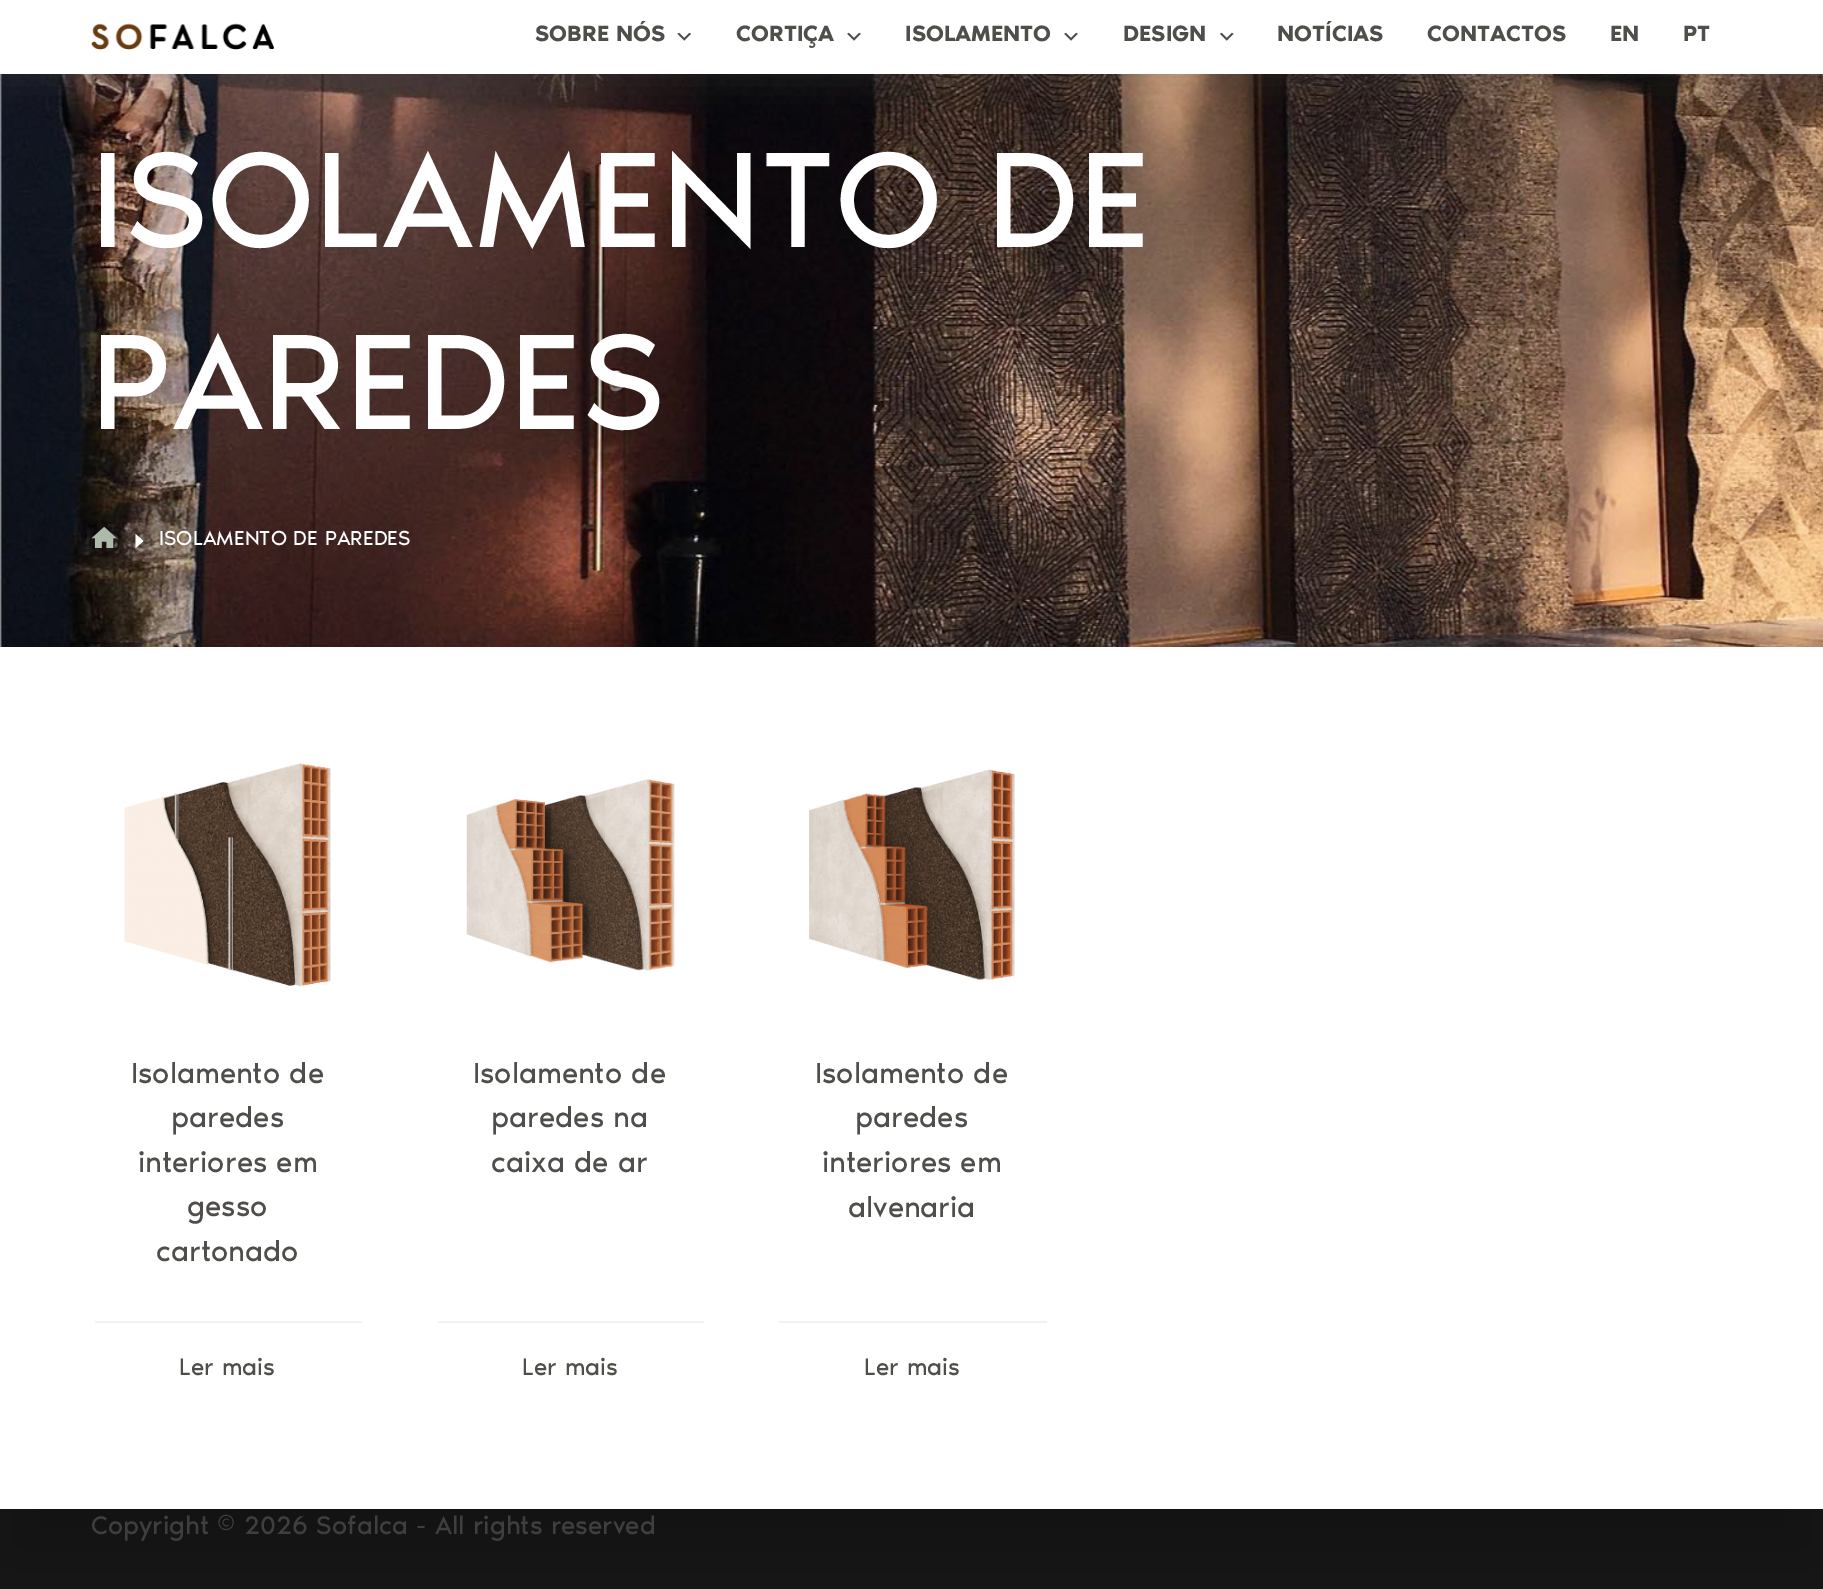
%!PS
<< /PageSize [1823 1589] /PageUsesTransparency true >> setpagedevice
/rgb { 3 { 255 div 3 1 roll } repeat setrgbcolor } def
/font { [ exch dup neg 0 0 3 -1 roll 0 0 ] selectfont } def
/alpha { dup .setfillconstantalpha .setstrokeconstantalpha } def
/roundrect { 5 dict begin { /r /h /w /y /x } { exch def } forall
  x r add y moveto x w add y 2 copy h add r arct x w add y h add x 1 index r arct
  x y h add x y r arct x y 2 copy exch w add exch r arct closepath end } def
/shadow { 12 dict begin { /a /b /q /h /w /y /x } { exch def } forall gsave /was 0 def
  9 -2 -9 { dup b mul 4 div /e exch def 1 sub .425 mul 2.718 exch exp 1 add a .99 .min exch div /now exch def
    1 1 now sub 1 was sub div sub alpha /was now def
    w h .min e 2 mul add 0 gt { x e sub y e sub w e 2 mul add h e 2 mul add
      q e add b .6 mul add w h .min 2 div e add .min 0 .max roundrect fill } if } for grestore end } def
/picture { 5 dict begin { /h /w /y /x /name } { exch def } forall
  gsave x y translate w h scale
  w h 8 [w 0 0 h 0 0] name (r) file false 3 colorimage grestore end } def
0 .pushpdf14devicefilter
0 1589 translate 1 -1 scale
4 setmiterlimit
24 24 24 rgb
0 0 1823 1589 rectfill
0 0 0 rgb
0 -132 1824 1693 0 44 0.3 shadow
(img/5.rgb) 0 74 1823 573 picture
80 78 73 rgb
0 9 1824 73 0 17.5 0.28 shadow
255 255 255 rgb
0 0 1823 74 rectfill
(img/1.rgb) 91 23 183 27 picture
(img/2.rgb) 677 32 14 9 picture
(img/3.rgb) 847 32 14 9 picture
(img/3.rgb) 1064 32 14 9 picture
(img/4.rgb) 1220 32 14 9 picture
0 647 1823 862 rectfill
(img/6.rgb) 91 527 26 21 picture
135.5 534 moveto 143.5 541 lineto 135.5 548 lineto closepath fill
(img/7.rgb) 124 763 207 224 picture
242 242 242 rgb
95 1321 267 2 rectfill
(img/8.rgb) 466 779 209 192 picture
438 1321 266 2 rectfill
(img/9.rgb) 809 769 206 212 picture
779 1321 268 2 rectfill
/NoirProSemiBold-SemiBold 22.75 font
80 78 74 rgb
[
  [(SOBRE NÓS) 535 41]
  [(CORTIÇA) 736 41]
  [(ISOLAMENTO) 905 41]
  [(DESIGN) 1123 41]
  [(NOTÍCIAS) 1277 41]
  [(CONTACTOS) 1427 41]
  [(EN) 1610 41]
  [(PT) 1683 41]
] { aload pop moveto show } forall
/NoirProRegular-Regular 140 font
255 255 255 rgb
91 247 moveto (ISOLAMENTO DE) show
91 429 moveto (PAREDES) show
/NoirProRegular-Regular 21 font
159 545 moveto (ISOLAMENTO DE PAREDES) show
/NoirProRegular-Regular 29.75 font
80 78 74 rgb
[
  [(Isolamento de) 131 1083]
  [(paredes) 171 1127]
  [(interiores em) 138 1172]
  [(gesso) 187 1216]
  [(cartonado) 156 1261]
] { aload pop moveto show } forall
/NoirProRegular-Regular 24.5 font
179 1375 moveto (Ler mais) show
/NoirProRegular-Regular 29.75 font
[
  [(Isolamento de) 473 1083]
  [(paredes na) 491 1127]
  [(caixa de ar) 491 1172]
] { aload pop moveto show } forall
/NoirProRegular-Regular 24.5 font
522 1375 moveto (Ler mais) show
/NoirProRegular-Regular 29.75 font
[
  [(Isolamento de) 815 1083]
  [(paredes) 855 1127]
  [(interiores em) 822 1172]
  [(alvenaria) 848 1217]
] { aload pop moveto show } forall
/NoirProRegular-Regular 24.5 font
864 1375 moveto (Ler mais) show
/NoirProRegular-Regular 26.25 font
63 63 63 rgb
91 1534 moveto (Copyright © 2026 Sofalca - All rights reserved) show
.poppdf14devicefilter showpage
